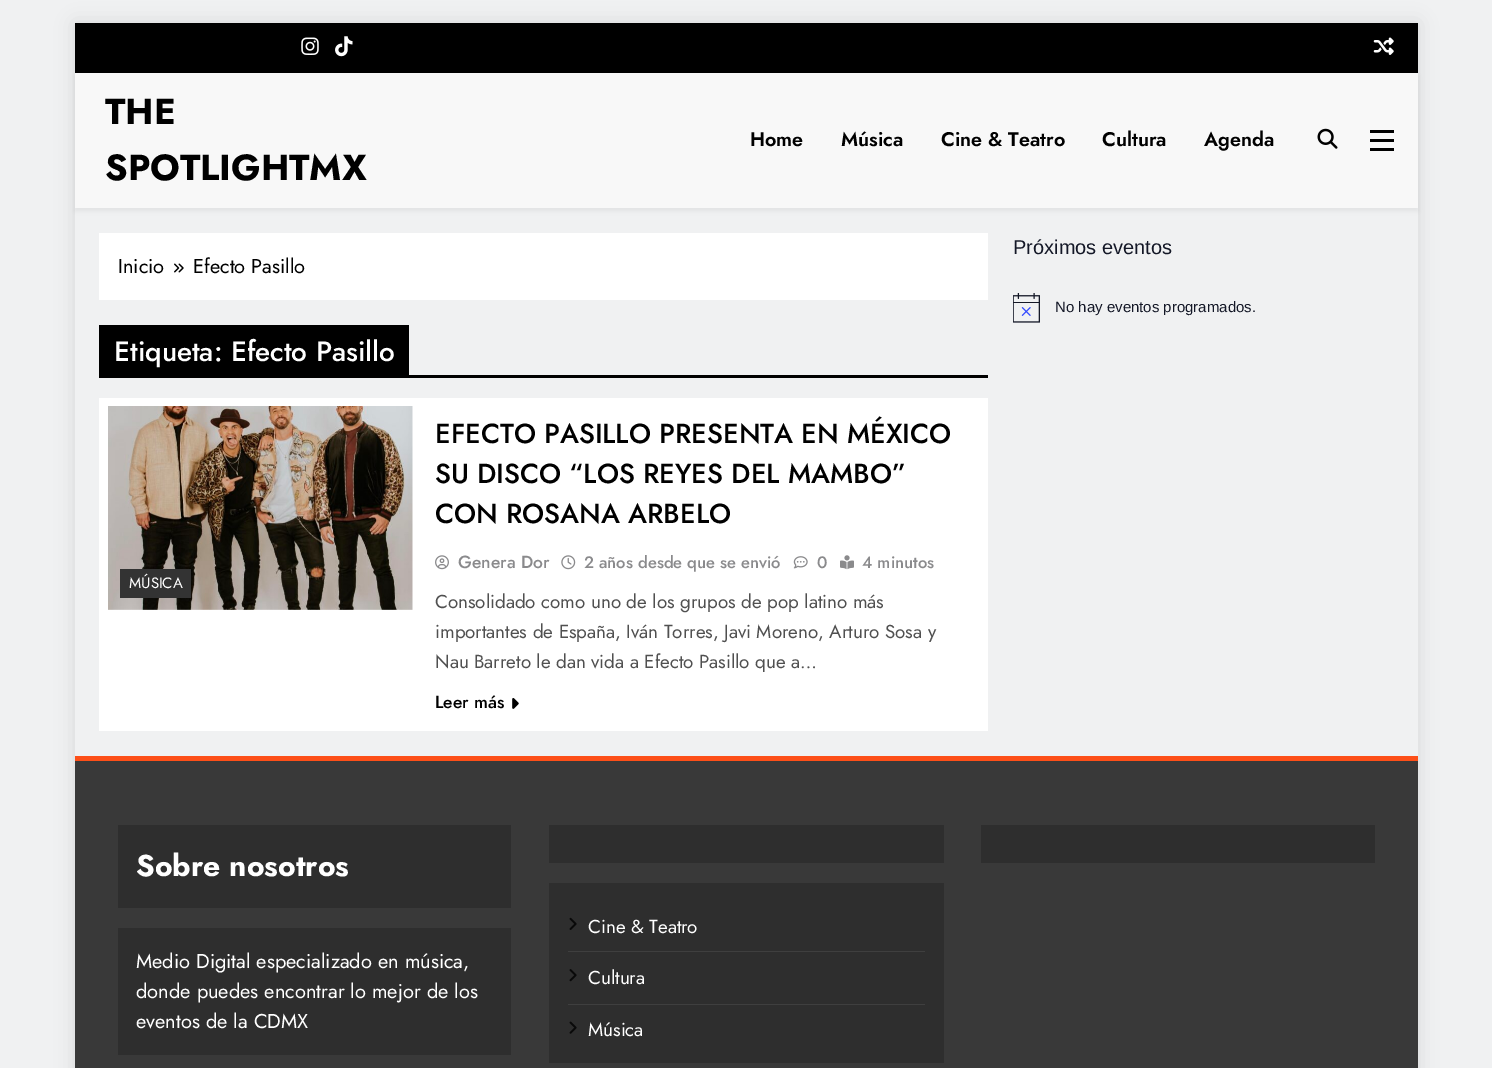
%!PS
<< /PageSize [1492 1068] /PageUsesTransparency true >> setpagedevice
/rgb { 3 { 255 div 3 1 roll } repeat setrgbcolor } def
/font { [ exch dup neg 0 0 3 -1 roll 0 0 ] selectfont } def
/alpha { dup .setfillconstantalpha .setstrokeconstantalpha } def
/roundrect { 5 dict begin { /r /h /w /y /x } { exch def } forall
  x r add y moveto x w add y 2 copy h add r arct x w add y h add x 1 index r arct
  x y h add x y r arct x y 2 copy exch w add exch r arct closepath end } def
/shadow { 12 dict begin { /a /b /q /h /w /y /x } { exch def } forall gsave /was 0 def
  9 -2 -9 { dup b mul 4 div /e exch def 1 sub .425 mul 2.718 exch exp 1 add a .99 .min exch div /now exch def
    1 1 now sub 1 was sub div sub alpha /was now def
    w h .min e 2 mul add 0 gt { x e sub y e sub w e 2 mul add h e 2 mul add
      q e add b .6 mul add w h .min 2 div e add .min 0 .max roundrect fill } if } for grestore end } def
/picture { 5 dict begin { /h /w /y /x /name } { exch def } forall
  gsave x y translate w h scale
  w h 8 [w 0 0 h 0 0] name (r) file false 3 colorimage grestore end } def
0 .pushpdf14devicefilter
0 1068 translate 1 -1 scale
4 setmiterlimit
240 241 242 rgb
0 0 1492 1068 rectfill
gsave
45 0 moveto 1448 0 lineto 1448 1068 lineto 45 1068 lineto closepath 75 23 moveto 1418 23 lineto 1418 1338 lineto 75 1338 lineto closepath eoclip newpath
0 0 0 rgb
75 23 1343 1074 0 9.5 0.1 shadow
grestore
0 0 0 rgb
75 23 1343 50 rectfill
(img/1.rgb) 301 37 18 18 picture
(img/2.rgb) 335 36 18 21 picture
(img/3.rgb) 1373 37 21 18 picture
75 76 1343 135 0 2.5 0.05 shadow
248 248 248 rgb
75 73 1343 135 rectfill
(img/4.rgb) 1317 128 21 21 picture
[
  [1370 130 24 3 0 0 0]
  [1370 139 24 3 0 0 0]
  [1370 148 24 3 0 0 0]
  [99 233 889 67 255 255 255]
] { aload pop rgb rectfill } forall
(img/5.rgb) 174 263 10 10 picture
[
  [409 375 579 3 0 0 0]
  [99 325 310 53 0 0 0]
  [99 398 889 333 255 255 255]
] { aload pop rgb rectfill } forall
(img/6.rgb) 108 406 305 204 picture
51 51 51 rgb
120 569 71 29 rectfill
(img/7.rgb) 435 555 14 15 picture
(img/8.rgb) 561 555 15 15 picture
(img/9.rgb) 793 556 15 13 picture
(img/10.rgb) 840 555 14 15 picture
(img/11.rgb) 512 698 7 11 picture
(img/12.rgb) 1013 293 27 30 picture
[
  [75 756 1343 5 253 79 24]
  [75 761 1343 307 57 57 57]
  [981 825 394 38 46 46 46]
  [118 825 393 83 46 46 46]
  [118 928 393 127 46 46 46]
  [549 825 395 38 46 46 46]
  [549 883 395 180 46 46 46]
  [568 951 357 1 63 63 63]
] { aload pop rgb rectfill } forall
(img/13.rgb) 569 917 8 13 picture
568 1004 357 1 rectfill
(img/14.rgb) 569 969 8 13 picture
(img/15.rgb) 569 1021 8 13 picture
/Jost-Bold 36.25 font
0 0 0 rgb
105 124 moveto (THE) show
105 180 moveto (SPOTLIGHTMX) show
/Jost-SemiBold 19.75 font
[
  [(Home) 750 146]
  [(Música) 841 146]
  [(Cine & Teatro) 941 146]
  [(Cultura) 1102 146]
  [(Agenda) 1204 146]
] { aload pop moveto show } forall
/Jost-Regular 20 font
118 273 moveto (Inicio) show
193 273 moveto (Efecto Pasillo) show
/Jost-Medium 28 font
255 255 255 rgb
114 361 moveto (Etiqueta: Efecto Pasillo) show
/Jost-Regular 15 font
129 588 moveto (MÚSICA) show
/Jost-Medium 27.5 font
0 0 0 rgb
[
  [(EFECTO PASILLO PRESENTA EN MÉXICO) 435 443]
  [(SU DISCO “LOS REYES DEL MAMBO”) 435 483]
  [(CON ROSANA ARBELO) 435 523]
] { aload pop moveto show } forall
/Jost-Medium 17.5 font
138 138 140 rgb
458 568 moveto (Genera Dor) show
/Jost-Medium 16.6 font
[
  [(2 años desde que se envió) 584 568]
  [(0) 817 568]
  [(4 minutos) 862 568]
] { aload pop moveto show } forall
/Jost-Regular 18.75 font
80 80 80 rgb
[
  [(Consolidado como uno de los grupos de pop latino más) 435 608]
  [(importantes de España, Iván Torres, Javi Moreno, Arturo Sosa y) 435 638]
  [(Nau Barreto le dan vida a Efecto Pasillo que a…) 435 668]
] { aload pop moveto show } forall
/Jost-Medium 17.5 font
0 0 0 rgb
435 708 moveto (Leer más) show
/LiberationSans-Regular 20 font
20 24 39 rgb
1013 254 moveto (Próximos eventos) show
/LiberationSans-Regular 15 font
1055 312 moveto (No hay eventos programados.) show
/Jost-Bold 30 font
255 255 255 rgb
136 876 moveto (Sobre nosotros) show
/Jost-Regular 20 font
[
  [(Medio Digital especializado en música,) 136 968]
  [(donde puedes encontrar lo mejor de los) 136 998]
  [(eventos de la CDMX) 136 1028]
] { aload pop moveto show } forall
/Jost-Regular 18.75 font
[
  [(Cine & Teatro) 588 933]
  [(Cultura) 588 984]
  [(Música) 588 1036]
] { aload pop moveto show } forall
.poppdf14devicefilter showpage
